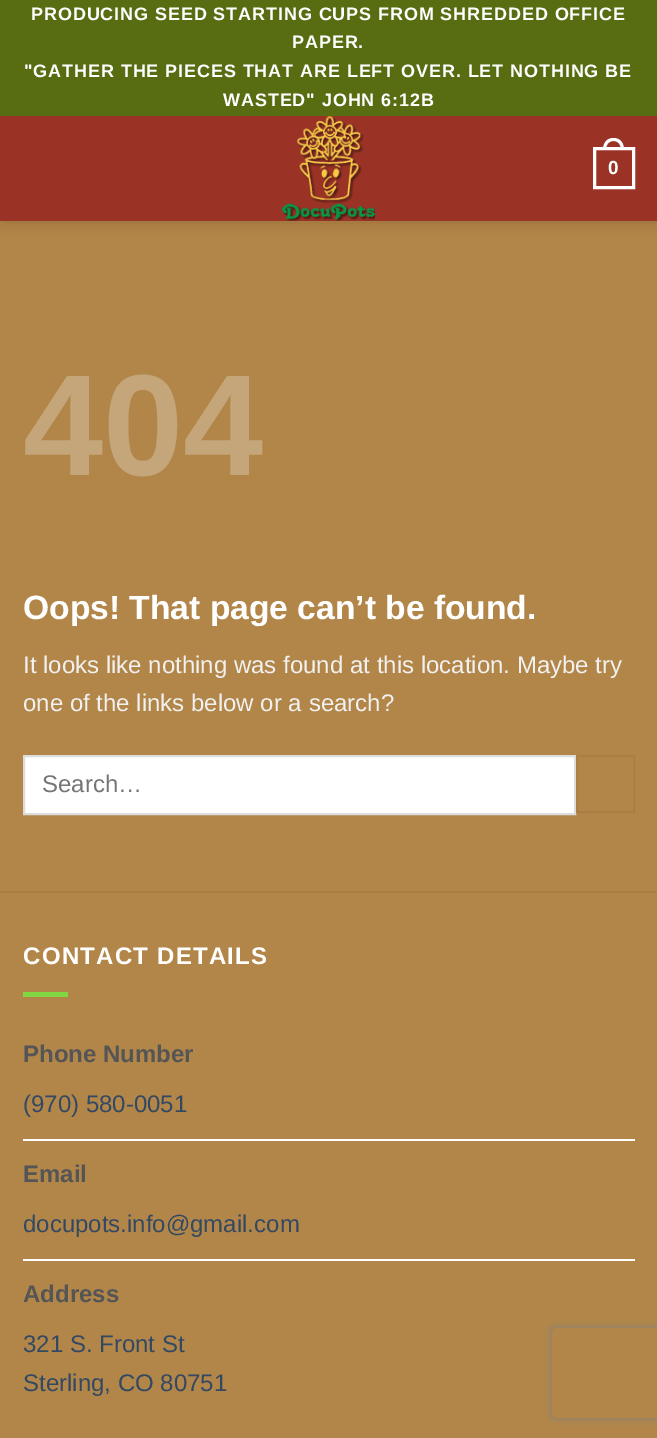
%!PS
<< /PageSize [657 1438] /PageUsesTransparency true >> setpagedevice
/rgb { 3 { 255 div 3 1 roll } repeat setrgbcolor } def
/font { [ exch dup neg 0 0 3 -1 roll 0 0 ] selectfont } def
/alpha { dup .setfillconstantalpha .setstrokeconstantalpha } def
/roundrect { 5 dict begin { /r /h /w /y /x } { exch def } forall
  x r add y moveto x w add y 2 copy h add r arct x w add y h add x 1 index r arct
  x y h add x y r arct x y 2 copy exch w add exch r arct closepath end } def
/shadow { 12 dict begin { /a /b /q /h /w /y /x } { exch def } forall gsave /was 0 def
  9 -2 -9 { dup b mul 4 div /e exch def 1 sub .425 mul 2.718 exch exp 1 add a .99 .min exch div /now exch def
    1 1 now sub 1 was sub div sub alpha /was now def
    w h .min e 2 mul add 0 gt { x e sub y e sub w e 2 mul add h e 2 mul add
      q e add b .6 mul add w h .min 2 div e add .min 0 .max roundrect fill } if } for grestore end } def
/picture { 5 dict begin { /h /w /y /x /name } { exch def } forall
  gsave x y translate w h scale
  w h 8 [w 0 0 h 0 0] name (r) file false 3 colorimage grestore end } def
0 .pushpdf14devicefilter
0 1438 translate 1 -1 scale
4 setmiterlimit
178 134 72 rgb
0 0 657 1438 rectfill
0 0 0 rgb
2 2 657 220 0 7.5 0.15 shadow
88 109 18 rgb
0 0 657 116 rectfill
154 51 38 rgb
0 116 657 105 rectfill
(img/1.rgb) 282 116 93 105 picture
255 255 255 rgb
3 setlinewidth
594.5 148.5 39 39 rectstroke
613.5 138 moveto 620.5 138 624 143.5 624 150 curveto 603 150 lineto 603 143.5 606.5 138 613.5 138 curveto closepath 613.5 141 moveto 619 141 621 145.5 621 150 curveto 606 150 lineto 606 145.5 608 141 613.5 141 curveto closepath eofill
24 756 moveto 575 756 lineto 575 814 lineto 24 814 lineto closepath gsave fill grestore
221 221 221 rgb
2 setlinewidth
stroke
169 127 68 rgb
577 756 57 56 rectstroke
[
  [0 891 657 2 169 127 68]
  [23 992 45 5 129 215 66]
  [23 1139 612 2 255 255 255]
  [23 1259 612 2 255 255 255]
] { aload pop rgb rectfill } forall
gsave
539 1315 moveto 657 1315 lineto 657 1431 lineto 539 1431 lineto closepath 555 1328 moveto 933 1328 lineto 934.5 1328 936 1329.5 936 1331 curveto 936 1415 lineto 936 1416.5 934.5 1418 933 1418 curveto 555 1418 lineto 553.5 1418 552 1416.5 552 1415 curveto 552 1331 lineto 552 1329.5 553.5 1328 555 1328 curveto closepath eoclip newpath
128 128 128 rgb
552 1328 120 90 3 4 1 shadow
grestore
/LiberationSans-Bold 18 font
31 20 moveto 0.9 0 (PRODUCING SEED STARTING CUPS FROM SHREDDED OFFICE) ashow
292 48 moveto 0.9 0 (PAPER.) ashow
24 77 moveto 0.9 0 ("GATHER THE PIECES THAT ARE LEFT OVER. LET NOTHING BE) ashow
223 106 moveto 0.9 0 (WASTED" JOHN 6:12B) ashow
/LiberationSans-Bold 19 font
608 174 moveto (0) show
/LiberationSans-Bold 144 font
197 166 123 rgb
23 475 moveto (404) show
/LiberationSans-Bold 33.6 font
255 255 255 rgb
23 619 moveto (Oops! That page can’t be found.) show
/LiberationSans-Regular 24 font
241 241 241 rgb
23 673 moveto (It looks like nothing was found at this location. Maybe try) show
23 711 moveto (one of the links below or a search?) show
117 117 117 rgb
42 792 moveto (Search…) show
/LiberationSans-Bold 24 font
255 255 255 rgb
23 964 moveto 1.25 0 (CONTACT DETAILS) ashow
85 85 85 rgb
23 1062 moveto (Phone Number) show
/LiberationSans-Regular 24 font
51 72 98 rgb
23 1112 moveto (\(970\) 580-0051) show
/LiberationSans-Bold 24 font
85 85 85 rgb
23 1182 moveto (Email) show
/LiberationSans-Regular 24 font
51 72 98 rgb
23 1232 moveto (docupots.info@gmail.com) show
/LiberationSans-Bold 24 font
85 85 85 rgb
23 1302 moveto (Address) show
/LiberationSans-Regular 24 font
51 72 98 rgb
23 1352 moveto (321 S. Front St) show
23 1391 moveto (Sterling, CO 80751) show
.poppdf14devicefilter showpage
